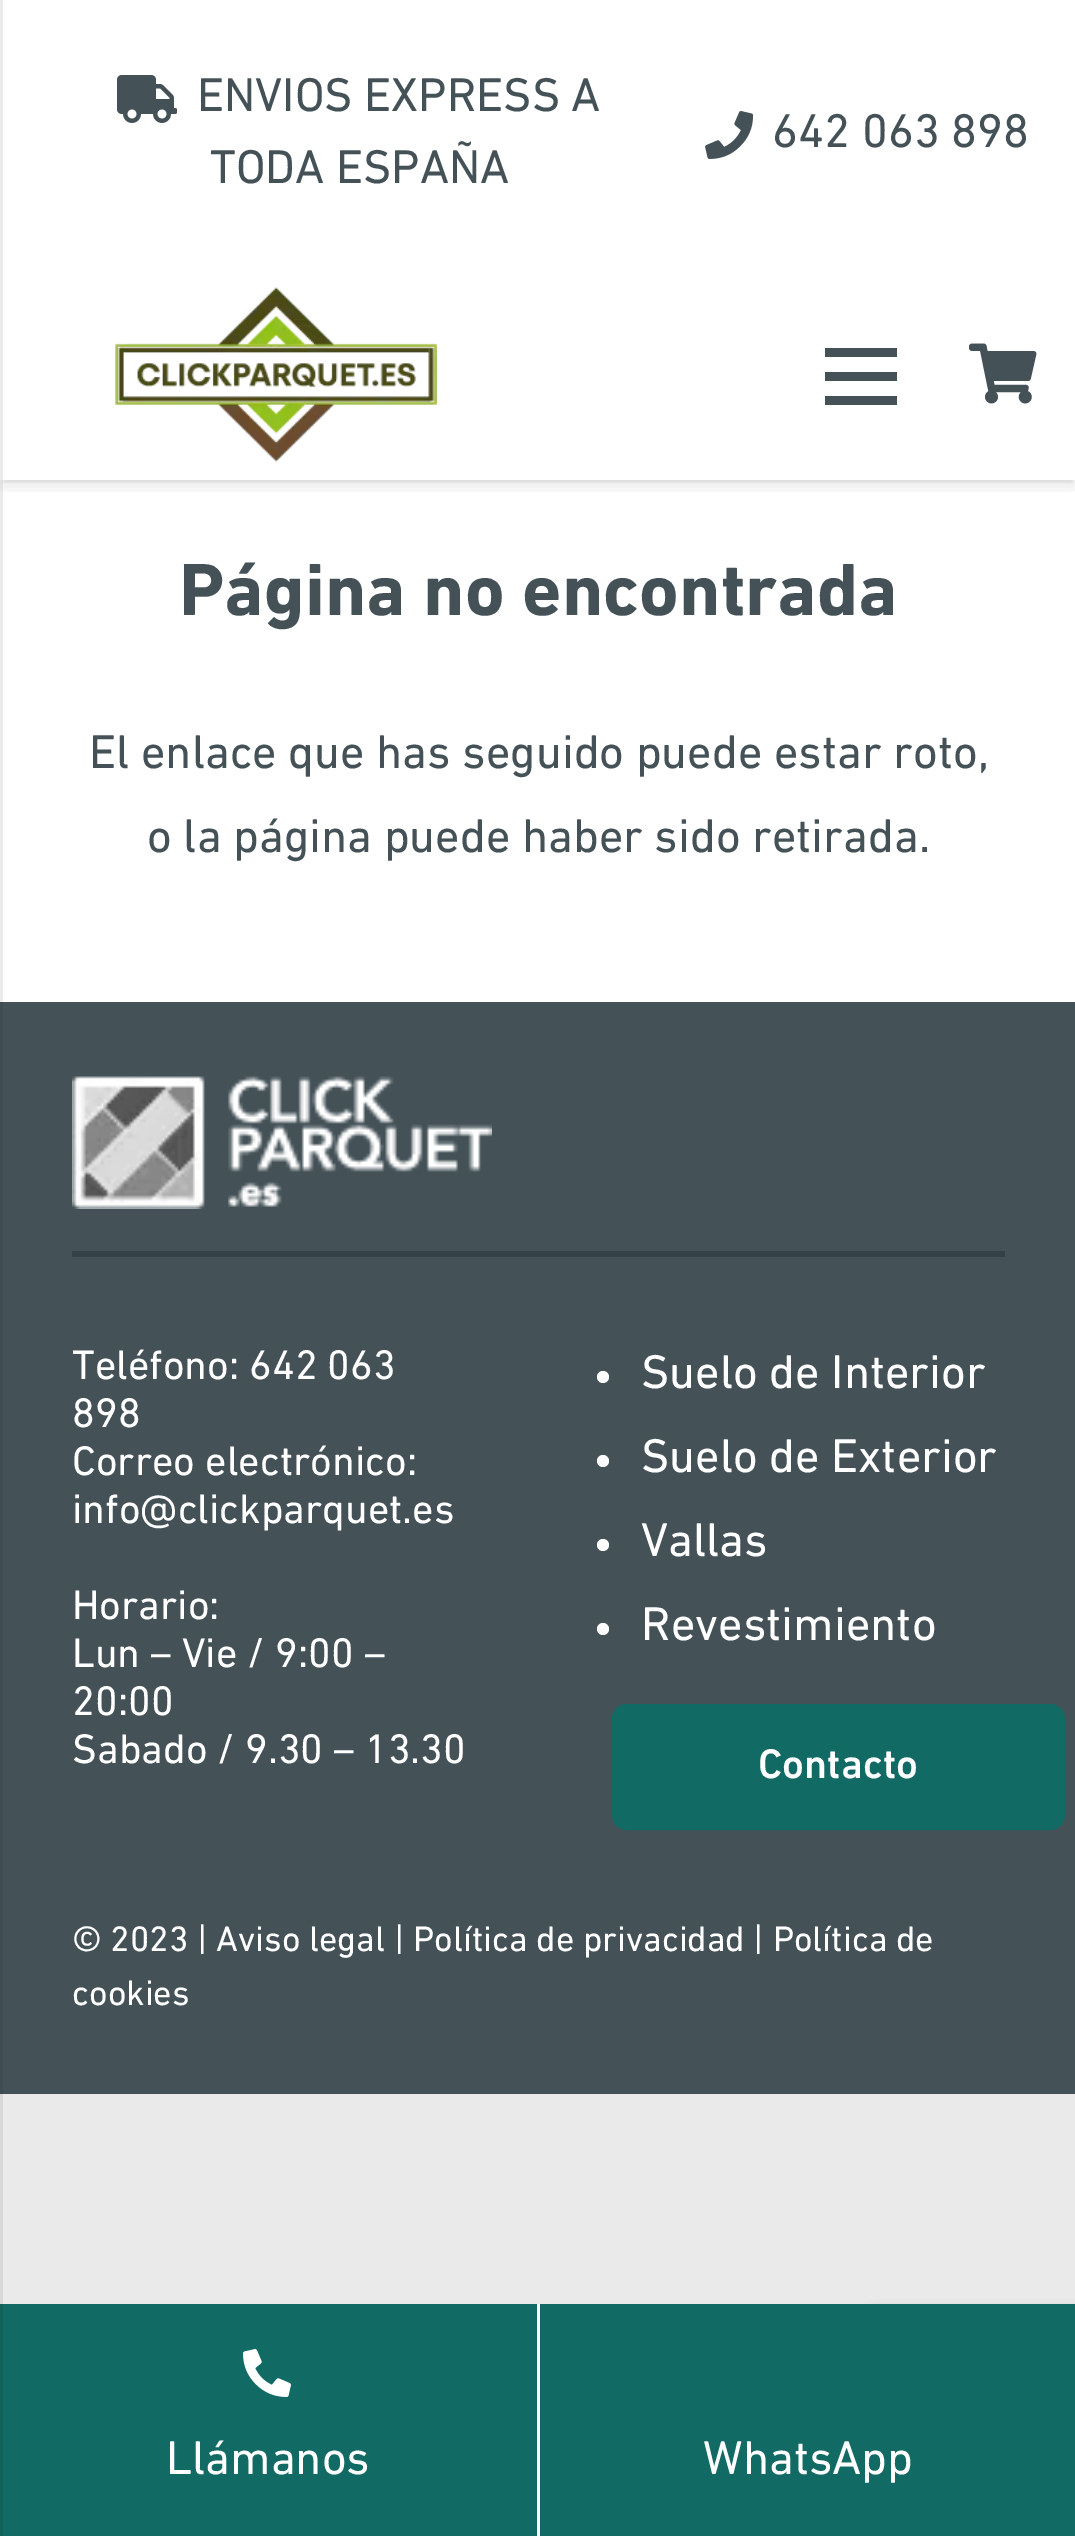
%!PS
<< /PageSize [1075 2536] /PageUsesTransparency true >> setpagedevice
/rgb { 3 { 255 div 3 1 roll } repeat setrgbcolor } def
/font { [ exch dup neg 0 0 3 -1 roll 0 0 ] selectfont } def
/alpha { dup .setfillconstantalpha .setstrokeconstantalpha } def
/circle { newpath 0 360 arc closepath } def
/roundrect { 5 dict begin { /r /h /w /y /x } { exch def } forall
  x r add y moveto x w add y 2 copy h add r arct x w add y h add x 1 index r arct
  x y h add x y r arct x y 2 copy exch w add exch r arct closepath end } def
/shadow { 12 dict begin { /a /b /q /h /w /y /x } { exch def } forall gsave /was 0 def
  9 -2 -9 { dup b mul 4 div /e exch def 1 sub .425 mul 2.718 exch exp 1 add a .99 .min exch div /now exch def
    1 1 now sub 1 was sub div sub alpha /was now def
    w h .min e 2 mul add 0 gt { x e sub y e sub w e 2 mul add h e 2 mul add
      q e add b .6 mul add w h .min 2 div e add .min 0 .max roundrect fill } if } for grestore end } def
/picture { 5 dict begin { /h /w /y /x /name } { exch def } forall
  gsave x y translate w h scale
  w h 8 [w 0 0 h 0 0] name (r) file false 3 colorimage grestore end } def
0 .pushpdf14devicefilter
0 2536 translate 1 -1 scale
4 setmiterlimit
234 234 234 rgb
0 0 1075 2536 rectfill
255 255 255 rgb
0 0 1075 1002 rectfill
gsave
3 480 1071 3 rectclip
0 0 0 rgb
3 279 1071 204 0 1.5 0.05 shadow
grestore
gsave
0 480 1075 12 rectclip
0 0 0 rgb
3 282 1071 204 0 7.5 0.1 shadow
grestore
[
  [0 1002 1075 1092 68 82 88]
  [0 2304 537 232 17 106 99]
] { aload pop rgb rectfill } forall
0.08 alpha
[
  [0 0 3 2536 0 0 0]
] { aload pop rgb rectfill } forall
1 alpha
[
  [825 372 72 9 68 82 88]
  [825 348 72 9 68 82 88]
  [825 396 72 9 68 82 88]
] { aload pop rgb rectfill } forall
(img/1.rgb) 969 343 68 61 picture
(img/2.rgb) 115 287 323 175 picture
(img/3.rgb) 117 75 60 48 picture
(img/4.rgb) 705 111 49 48 picture
(img/5.rgb) 72 1076 420 133 picture
52 65 71 rgb
72 1251 933 6 rectfill
255 255 255 rgb
603 1377 6 circle fill
603 1461 6 circle fill
603 1545 6 circle fill
603 1629 6 circle fill
17 106 99 rgb
612 1704 453 126 15 roundrect fill
3 setlinewidth
613.5 1705.5 450 123 13.5 roundrect stroke
255 255 255 rgb
537 2304 3 232 rectfill
(img/6.rgb) 243 2349 48 48 picture
128 128 128 rgb
867 2316 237 180 6 7.5 1 shadow
17 106 99 rgb
540 2304 535 232 rectfill
/DINNext-Regular 48 font
68 82 88 rgb
[
  [(ENVIOS EXPRESS A) 197 111]
  [(TODA ESPAÑA) 210 183]
  [(642 063 898) 772 147]
] { aload pop moveto show } forall
/DINNext-Bold 75 font
179 615 moveto (Página no encontrada) show
/DINNext-Regular 48 font
89 768 moveto (El enlace que has seguido puede estar roto,) show
147 852 moveto (o la página puede haber sido retirada.) show
/DINNext-Regular 42 font
255 255 255 rgb
[
  [(Teléfono: 642 063) 72 1379]
  [(898) 72 1427]
  [(Correo electrónico:) 72 1475]
  [(info@clickparquet.es) 72 1523]
  [(Horario:) 72 1619]
  [(Lun – Vie / 9:00 –) 72 1667]
  [(20:00) 72 1715]
  [(Sabado / 9.30 – 13.30) 72 1763]
] { aload pop moveto show } forall
/DINNext-Regular 48 font
[
  [(Suelo de Interior) 641 1388]
  [(Suelo de Exterior) 641 1472]
  [(Vallas) 641 1556]
  [(Revestimiento) 641 1640]
] { aload pop moveto show } forall
/DINNext-Medium 42 font
758 1778 moveto (Contacto) show
/DINNext-Regular 36 font
72 1951 moveto (© 2023 | Aviso legal | Política de privacidad | Política de) show
72 2005 moveto (cookies) show
/DINNext-Regular 48 font
166 2474 moveto (Llámanos) show
703 2474 moveto (WhatsApp) show
.poppdf14devicefilter showpage
